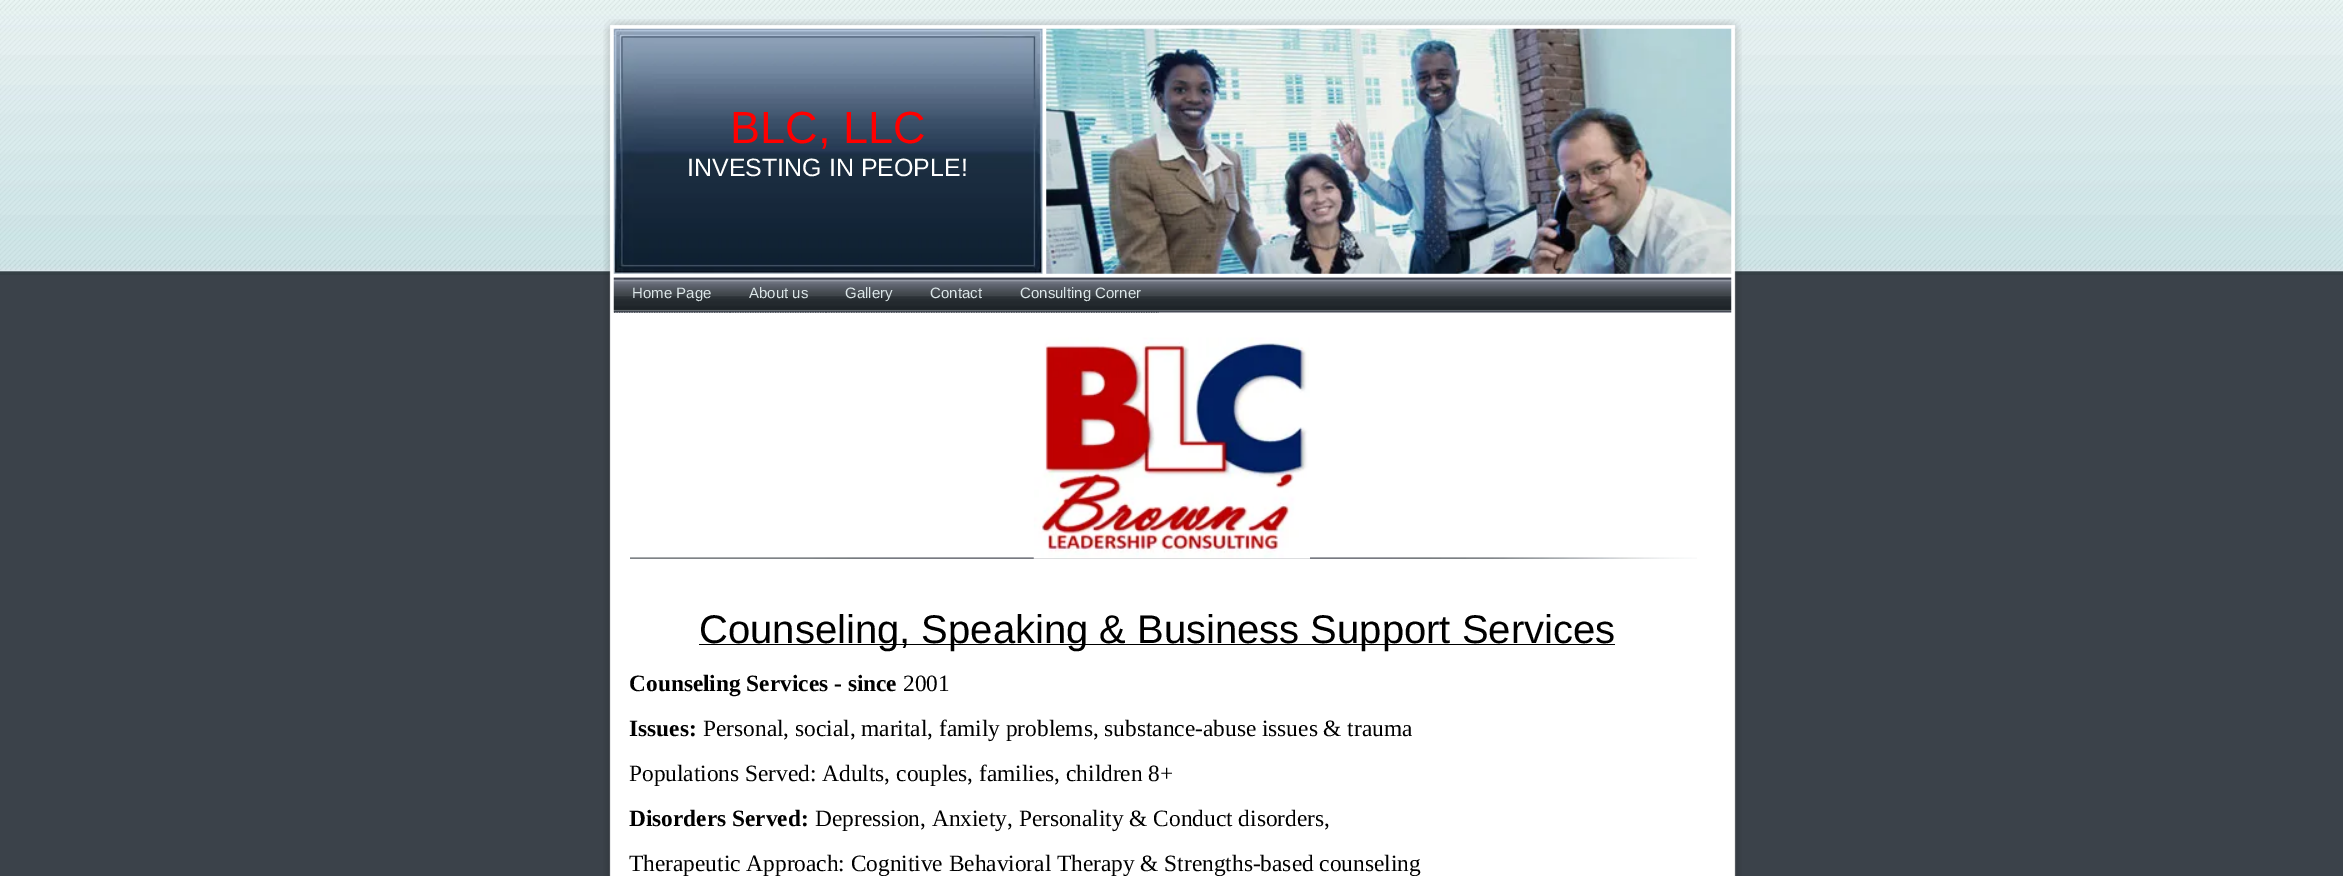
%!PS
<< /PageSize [2343 876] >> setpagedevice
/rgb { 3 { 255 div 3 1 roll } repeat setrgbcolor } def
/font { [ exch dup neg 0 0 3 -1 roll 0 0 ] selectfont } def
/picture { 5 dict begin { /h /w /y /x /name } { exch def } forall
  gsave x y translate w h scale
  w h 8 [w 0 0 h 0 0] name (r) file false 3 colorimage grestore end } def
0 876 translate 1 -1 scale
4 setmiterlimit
59 66 74 rgb
0 0 2343 876 rectfill
(img/1.rgb) 0 0 2343 275 picture
(img/2.rgb) 604 19 1137 10 picture
(img/3.rgb) 603 28 1139 848 picture
(img/4.rgb) 613 28 430 246 picture
(img/5.rgb) 1046 28 686 246 picture
(img/6.rgb) 613 277 1119 36 picture
1.2 setlinewidth
[1.25 1.25] 0 setdash
614 312 moveto 730 312 lineto stroke
730 312 moveto 826 312 lineto stroke
826 312 moveto 911 312 lineto stroke
911 312 moveto 1001 312 lineto stroke
1001 312 moveto 1159 312 lineto stroke
(img/7.rgb) 630 557 1067 2 picture
(img/8.rgb) 1033 337 277 222 picture
0 0 0 rgb
699 644 916 1 rectfill
/LiberationSans-Regular 45 font
255 0 0 rgb
730 143 moveto (BLC, LLC) show
/LiberationSans-Regular 25 font
255 255 255 rgb
687 176 moveto (INVESTING IN PEOPLE!) show
/LiberationSans-Regular 15 font
219 230 232 rgb
[
  [(Home Page) 632 298]
  [(About us) 749 298]
  [(Gallery) 845 298]
  [(Contact) 930 298]
  [(Consulting Corner) 1020 298]
] { aload pop moveto show } forall
/LiberationSans-Regular 40 font
0 0 0 rgb
699 643 moveto (Counseling, Speaking & Business Support Services) show
/LiberationSerif-Bold 23.35 font
629 691 moveto (Counseling Services - since) show
/LiberationSerif-Regular 23.35 font
903 691 moveto (2001) show
/LiberationSerif-Bold 23.35 font
629 736 moveto (Issues:) show
/LiberationSerif-Regular 23.35 font
703 736 moveto (Personal, social, marital, family problems, substance-abuse issues & trauma) show
629 781 moveto (Populations Served: Adults, couples, families, children 8+) show
/LiberationSerif-Bold 23.35 font
629 826 moveto (Disorders Served:) show
/LiberationSerif-Regular 23.35 font
815 826 moveto (Depression, Anxiety, Personality & Conduct disorders,) show
629 871 moveto (Therapeutic Approach: Cognitive Behavioral Therapy & Strengths-based counseling) show
showpage
